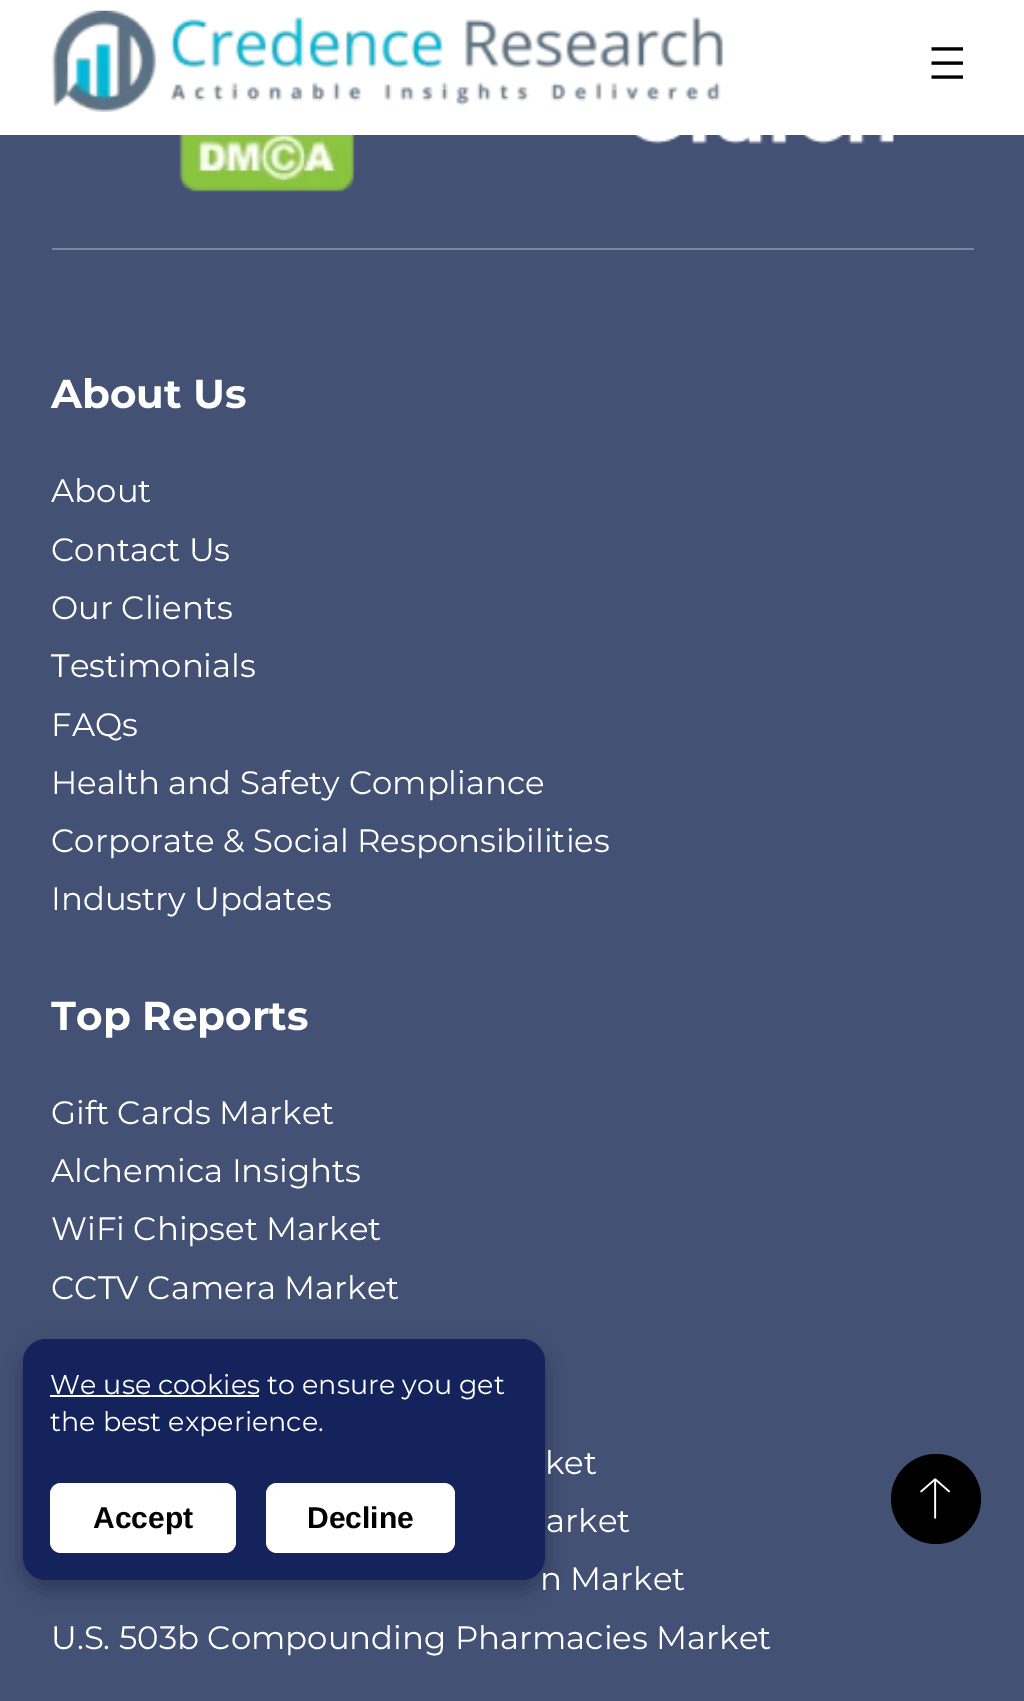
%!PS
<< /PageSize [1024 1701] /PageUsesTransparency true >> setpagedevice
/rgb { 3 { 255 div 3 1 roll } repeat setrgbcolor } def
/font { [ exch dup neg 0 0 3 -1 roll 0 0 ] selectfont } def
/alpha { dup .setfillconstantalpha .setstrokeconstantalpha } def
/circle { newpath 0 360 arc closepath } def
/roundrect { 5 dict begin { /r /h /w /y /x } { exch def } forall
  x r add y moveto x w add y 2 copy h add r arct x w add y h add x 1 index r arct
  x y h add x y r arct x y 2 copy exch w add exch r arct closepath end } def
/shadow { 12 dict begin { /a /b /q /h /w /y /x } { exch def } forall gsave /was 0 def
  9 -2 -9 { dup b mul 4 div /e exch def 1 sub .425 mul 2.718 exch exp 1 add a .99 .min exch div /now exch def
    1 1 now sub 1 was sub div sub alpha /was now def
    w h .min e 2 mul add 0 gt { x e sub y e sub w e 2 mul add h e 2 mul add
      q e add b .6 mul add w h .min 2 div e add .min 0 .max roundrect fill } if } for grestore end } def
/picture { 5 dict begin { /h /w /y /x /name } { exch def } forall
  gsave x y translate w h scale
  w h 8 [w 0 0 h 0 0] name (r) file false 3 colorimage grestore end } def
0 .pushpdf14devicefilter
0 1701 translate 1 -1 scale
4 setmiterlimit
67 81 117 rgb
0 0 1024 1701 rectfill
255 255 255 rgb
0 0 1024 135 rectfill
(img/1.rgb) 51 10 672 102 picture
(img/2.rgb) 931 47 32 32 picture
(img/3.rgb) 179 135 177 57 picture
(img/4.rgb) 634 135 260 9 picture
125 134 154 rgb
52 248 922 2 rectfill
0 0 0 rgb
23 1348 522 241 23 11 0.3 shadow
936 1499 45 circle fill
(img/5.rgb) 920 1478 30 41 picture
/Montserrat-Thin 40.5 font
255 255 254 rgb
51 408 moveto (About Us) show
/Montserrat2-Thin 32.4 font
[
  [(About) 51 502]
  [(Contact Us) 51 561]
  [(Our Clients) 51 619]
  [(Testimonials) 51 677]
  [(FAQs) 51 736]
  [(Health and Safety Compliance) 51 794]
  [(Corporate & Social Responsibilities) 51 852]
  [(Industry Updates) 51 910]
] { aload pop moveto show } forall
/Montserrat-Thin 40.5 font
51 1030 moveto (Top Reports) show
/Montserrat2-Thin 32.4 font
[
  [(Gift Cards Market) 51 1124]
  [(Alchemica Insights) 51 1182]
  [(WiFi Chipset Market) 51 1240]
  [(CCTV Camera Market) 51 1299]
  [(ket) 545 1474]
  [(arket) 546 1532]
  [(n Market) 540 1590]
  [(U.S. 503b Compounding Pharmacies Market) 51 1649]
] { aload pop moveto show } forall
21 35 92 rgb
23 1339 522 241 23 roundrect fill
255 255 255 rgb
50 1395 209 2 rectfill
/Montserrat2-Thin 27 font
255 255 254 rgb
50 1394 moveto (We use cookies to ensure you get) show
50 1431 moveto (the best experience.) show
255 255 255 rgb
50 1483 186 70 11 roundrect fill
/LiberationSans-Bold 30 font
0 0 0 rgb
93 1528 moveto (Accept) show
255 255 255 rgb
266 1483 189 70 11 roundrect fill
0 0 0 rgb
307 1528 moveto (Decline) show
.poppdf14devicefilter showpage
